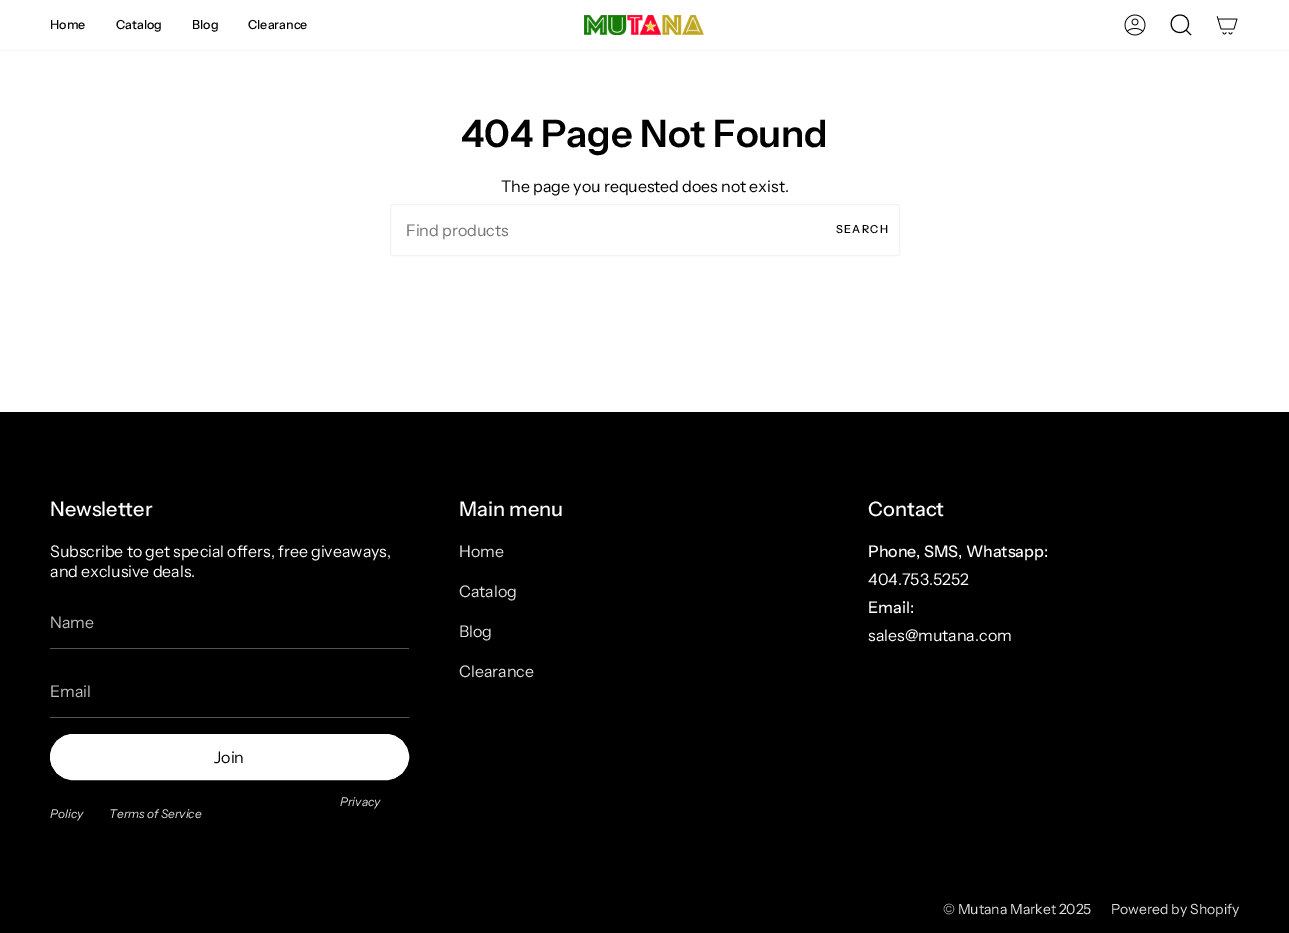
%!PS
<< /PageSize [1289 933] >> setpagedevice
/rgb { 3 { 255 div 3 1 roll } repeat setrgbcolor } def
/font { [ exch dup neg 0 0 3 -1 roll 0 0 ] selectfont } def
/roundrect { 5 dict begin { /r /h /w /y /x } { exch def } forall
  x r add y moveto x w add y 2 copy h add r arct x w add y h add x 1 index r arct
  x y h add x y r arct x y 2 copy exch w add exch r arct closepath end } def
/picture { 5 dict begin { /h /w /y /x /name } { exch def } forall
  gsave x y translate w h scale
  w h 8 [w 0 0 h 0 0] name (r) file false 3 colorimage grestore end } def
0 933 translate 1 -1 scale
4 setmiterlimit
255 255 255 rgb
0 0 1289 933 rectfill
247 247 247 rgb
0 50 1289 1 rectfill
(img/1.rgb) 584 15 120 20 picture
(img/2.rgb) 1124 14 22 22 picture
0 0 0 rgb
1180 15 moveto 1191.5 15 1191.5 33 1179.5 32.5 curveto 1168 32 1168.5 15 1180 15 curveto closepath 1186 30 moveto 1191 35 lineto stroke
(img/3.rgb) 1216 16 22 19 picture
243 243 243 rgb
390.5 204.5 509 51 2.5 roundrect stroke
[
  [0 412 1289 521 0 0 0]
  [50 648 359 1 83 83 83]
  [50 717 359 1 83 83 83]
] { aload pop rgb rectfill } forall
255 255 255 rgb
50.5 734.5 358 45 22.5 roundrect gsave fill grestore
stroke
/InstrumentSans-Medium 12.5 font
0 0 0 rgb
[
  [(Home) 50 29]
  [(Catalog) 116 29]
  [(Blog) 192 29]
  [(Clearance) 248 29]
] { aload pop moveto show } forall
/InstrumentSans-SemiBold 38 font
461 147 moveto (404 Page Not Found) show
/InstrumentSans-Regular 16 font
501 192 moveto (The page you requested does not exist.) show
117 117 117 rgb
406 236 moveto (Find products) show
/InstrumentSans-Medium 11 font
0 0 0 rgb
836 233 moveto 1.25 0 (SEARCH) ashow
/InstrumentSans-Medium 20 font
255 255 255 rgb
50 516 moveto (Newsletter) show
/InstrumentSans-Regular 16 font
50 557 moveto (Subscribe to get special offers, free giveaways,) show
50 577 moveto (and exclusive deals.) show
191 191 191 rgb
50 628 moveto (Name) show
50 697 moveto (Email) show
0 0 0 rgb
214 763 moveto (Join) show
/InstrumentSans-Italic 12 font
225 225 225 rgb
[
  [(Privacy) 340 806]
  [(Policy) 50 818]
  [(Terms of Service) 109 818]
] { aload pop moveto show } forall
/InstrumentSans-Medium 20 font
255 255 255 rgb
459 516 moveto (Main menu) show
/InstrumentSans-Regular 16 font
225 225 225 rgb
[
  [(Home) 459 557]
  [(Catalog) 459 597]
  [(Blog) 459 637]
  [(Clearance) 459 677]
] { aload pop moveto show } forall
/InstrumentSans-Medium 20 font
255 255 255 rgb
868 516 moveto (Contact) show
/InstrumentSans-Medium 16 font
868 557 moveto (Phone, SMS, Whatsapp:) show
/InstrumentSans-Regular 16 font
868 585 moveto (404.753.5252) show
/InstrumentSans-Medium 16 font
868 613 moveto (Email:) show
/InstrumentSans-Regular 16 font
868 641 moveto (sales@mutana.com) show
/InstrumentSans-Regular 14 font
225 225 225 rgb
943 914 moveto (© Mutana Market 2025) show
1111 914 moveto (Powered by Shopify) show
showpage
